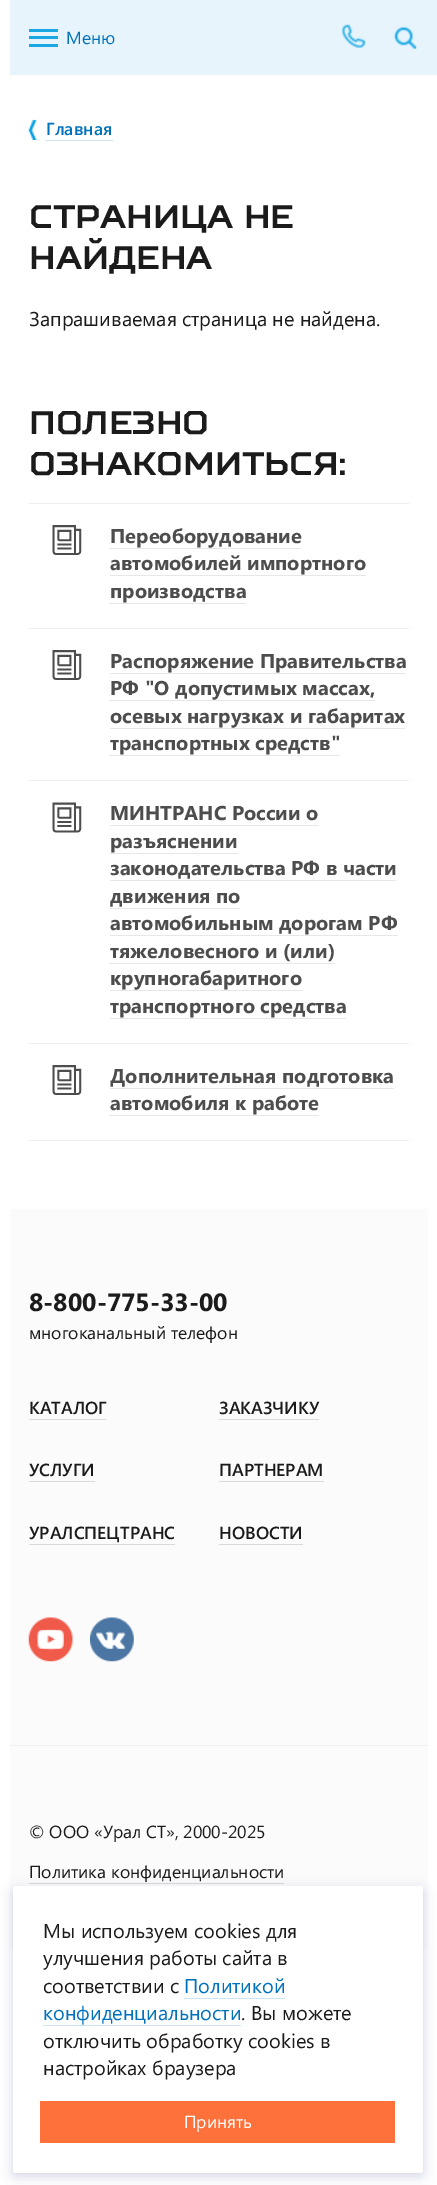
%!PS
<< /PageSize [437 2185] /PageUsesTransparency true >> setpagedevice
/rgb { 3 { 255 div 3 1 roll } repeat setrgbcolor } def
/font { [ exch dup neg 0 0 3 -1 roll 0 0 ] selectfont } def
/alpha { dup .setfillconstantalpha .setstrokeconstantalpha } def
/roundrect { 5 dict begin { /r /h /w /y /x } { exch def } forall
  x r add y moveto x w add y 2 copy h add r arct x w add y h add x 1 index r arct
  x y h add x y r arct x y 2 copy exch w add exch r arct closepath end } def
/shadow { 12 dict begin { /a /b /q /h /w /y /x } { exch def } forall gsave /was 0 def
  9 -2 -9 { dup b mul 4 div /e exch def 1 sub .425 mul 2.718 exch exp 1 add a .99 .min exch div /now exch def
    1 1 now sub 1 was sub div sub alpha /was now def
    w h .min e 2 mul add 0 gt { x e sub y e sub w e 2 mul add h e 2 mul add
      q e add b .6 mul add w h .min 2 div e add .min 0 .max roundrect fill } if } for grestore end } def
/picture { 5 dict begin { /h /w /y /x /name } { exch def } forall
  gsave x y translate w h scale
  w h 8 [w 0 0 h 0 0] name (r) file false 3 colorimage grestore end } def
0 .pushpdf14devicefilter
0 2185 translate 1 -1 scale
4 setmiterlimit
255 255 255 rgb
0 0 437 2185 rectfill
[
  [10 0 427 75 231 244 252]
  [29 36 29 3 26 168 229]
  [29 29 29 3 26 168 229]
  [29 44 29 3 26 168 229]
] { aload pop rgb rectfill } forall
(img/1.rgb) 342 24 24 24 picture
(img/2.rgb) 394 26 23 23 picture
(img/3.rgb) 28 119 9 21 picture
[
  [46 140 67 1 204 227 241]
  [29 503 380 1 237 237 238]
  [29 628 380 1 237 237 238]
] { aload pop rgb rectfill } forall
(img/4.rgb) 52 525 30 30 picture
[
  [110 548 191 1 231 231 231]
  [110 575 256 1 231 231 231]
  [110 603 136 1 231 231 231]
  [29 780 380 1 237 237 238]
] { aload pop rgb rectfill } forall
(img/4.rgb) 52 650 30 30 picture
[
  [110 673 296 1 231 231 231]
  [110 700 265 1 231 231 231]
  [110 728 295 1 231 231 231]
  [110 755 230 1 231 231 231]
  [29 1043 380 1 237 237 238]
] { aload pop rgb rectfill } forall
(img/5.rgb) 52 802 30 31 picture
[
  [110 825 209 1 231 231 231]
  [110 853 128 1 231 231 231]
  [110 880 286 1 231 231 231]
  [110 908 130 1 231 231 231]
  [110 935 288 1 231 231 231]
  [110 963 225 1 231 231 231]
  [110 990 193 1 231 231 231]
  [110 1018 236 1 231 231 231]
  [29 1140 380 1 237 237 238]
] { aload pop rgb rectfill } forall
(img/4.rgb) 52 1065 30 30 picture
[
  [110 1088 284 1 231 231 231]
  [110 1115 209 1 231 231 231]
  [10 1209 418 536 251 251 252]
  [29 1419 77 1 217 217 218]
  [219 1419 100 1 217 217 218]
  [29 1481 66 1 217 217 218]
  [219 1481 105 1 217 217 218]
  [29 1544 146 1 217 217 218]
  [219 1544 84 1 217 217 218]
] { aload pop rgb rectfill } forall
(img/6.rgb) 28 1617 45 45 picture
(img/7.rgb) 90 1617 44 45 picture
[
  [10 1746 418 203 251 251 252]
  [10 1745 418 1 240 240 240]
  [29 1883 255 1 217 217 218]
] { aload pop rgb rectfill } forall
30 41 117 rgb
13 1890 410 286 2.5 6 0.2 shadow
255 255 255 rgb
13 1886 410 287 2.5 roundrect fill
[
  [184 1998 101 1 204 227 241]
  [43 2025 198 1 204 227 241]
  [40 2101 355 42 255 113 58]
] { aload pop rgb rectfill } forall
/SegoeUI-Regular 17.5 font
0 114 187 rgb
66 44 moveto (Меню) show
/SegoeUI-SemiBold 17.5 font
46 135 moveto (Главная) show
/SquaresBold-Bold 32.5 font
27 27 27 rgb
29 228 moveto (СТРАНИЦА НЕ) show
29 269 moveto (НАЙДЕНА) show
/SegoeUI-Regular 20 font
29 326 moveto (Запрашиваемая страница не найдена.) show
/SquaresBold-Bold 32.5 font
29 434 moveto (Полезно) show
29 475 moveto (ознакомиться:) show
/SegoeUI-Bold 20 font
77 77 77 rgb
[
  [(Переоборудование) 110 543]
  [(автомобилей импортного) 110 570]
  [(производства) 110 598]
  [(Распоряжение Правительства) 110 668]
  [(РФ "О допустимых массах,) 110 695]
  [(осевых нагрузках и габаритах) 110 723]
  [(транспортных средств") 110 750]
  [(МИНТРАНС России о) 110 820]
  [(разъяснении) 110 848]
  [(законодательства РФ в части) 110 875]
  [(движения по) 110 903]
  [(автомобильным дорогам РФ) 110 930]
  [(тяжеловесного и \(или\)) 110 958]
  [(крупногабаритного) 110 985]
  [(транспортного средства) 110 1013]
  [(Дополнительная подготовка) 110 1083]
  [(автомобиля к работе) 110 1110]
] { aload pop moveto show } forall
/SegoeUI-Bold 25 font
27 27 27 rgb
29 1311 moveto (8-800-775-33-00) show
/SegoeUI-Regular 17.5 font
29 1339 moveto (многоканальный телефон) show
/SegoeUI-SemiBold 17.5 font
[
  [(КАТАЛОГ) 29 1414]
  [(ЗАКАЗЧИКУ) 219 1414]
  [(УСЛУГИ) 29 1476]
  [(ПАРТНЕРАМ) 219 1476]
  [(УРАЛСПЕЦТРАНС) 29 1539]
  [(НОВОСТИ) 219 1539]
] { aload pop moveto show } forall
/SegoeUI-Regular 17.5 font
29 1838 moveto (© ООО «Урал СТ», 2000-2025) show
29 1878 moveto (Политика конфиденциальности) show
/SegoeUI-Regular 20 font
[
  [(Мы используем cookies для) 43 1938]
  [(улучшения работы сайта в) 43 1965]
  [(соответствии с) 43 1993]
] { aload pop moveto show } forall
0 114 187 rgb
184 1993 moveto (Политикой) show
43 2020 moveto (конфиденциальности) show
27 27 27 rgb
[
  [(. Вы можете) 241 2020]
  [(отключить обработку cookies в) 43 2048]
  [(настройках браузера) 43 2075]
] { aload pop moveto show } forall
/SegoeUI-Regular 17.5 font
255 255 255 rgb
184 2128 moveto (Принять) show
.poppdf14devicefilter showpage
